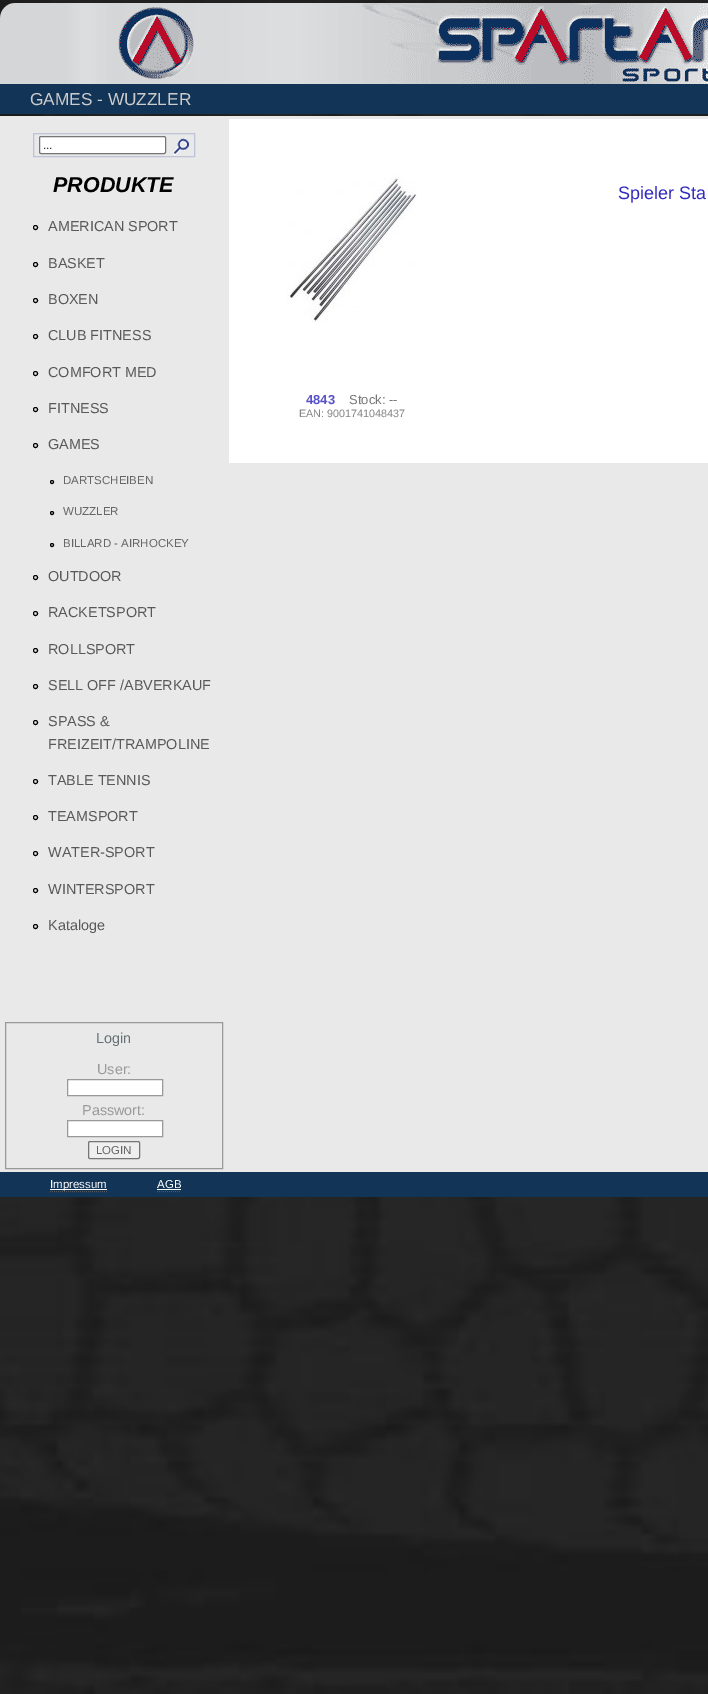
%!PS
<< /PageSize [708 1694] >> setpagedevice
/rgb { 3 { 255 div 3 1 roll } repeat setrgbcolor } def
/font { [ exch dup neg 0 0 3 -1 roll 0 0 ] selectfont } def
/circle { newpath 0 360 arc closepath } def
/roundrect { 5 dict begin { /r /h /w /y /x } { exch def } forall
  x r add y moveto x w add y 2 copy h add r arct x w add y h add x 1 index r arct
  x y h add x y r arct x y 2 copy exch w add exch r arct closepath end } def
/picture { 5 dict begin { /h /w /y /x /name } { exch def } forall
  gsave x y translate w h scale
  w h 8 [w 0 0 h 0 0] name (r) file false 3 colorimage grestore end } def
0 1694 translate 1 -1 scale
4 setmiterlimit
255 255 255 rgb
0 0 708 1694 rectfill
(img/1.rgb) 0 0 708 1694 picture
(img/2.rgb) 0 3 708 81 picture
18 52 86 rgb
0 84 708 30 rectfill
233 233 233 rgb
0 116 708 1056 rectfill
190 195 215 rgb
33.5 133.5 161 23 rectstroke
255 255 255 rgb
39.5 136.5 126 17 1.5 roundrect gsave fill grestore
118 118 118 rgb
stroke
(img/3.rgb) 173 138 16 17 picture
0 0 0 rgb
35.5 227.5 2 circle stroke
35.5 264.5 2 circle stroke
35.5 300.5 2 circle stroke
35.5 336.5 2 circle stroke
35.5 373.5 2 circle stroke
35.5 409.5 2 circle stroke
35.5 445.5 2 circle stroke
52 482 1.5 circle stroke
52 513 1.5 circle stroke
52 545 1.5 circle stroke
35.5 577.5 2 circle stroke
35.5 613.5 2 circle stroke
35.5 650.5 2 circle stroke
35.5 686.5 2 circle stroke
35.5 722.5 2 circle stroke
35.5 781.5 2 circle stroke
35.5 817.5 2 circle stroke
35.5 853.5 2 circle stroke
35.5 890.5 2 circle stroke
35.5 926.5 2 circle stroke
153 153 153 rgb
5.5 1022.5 217 146 rectstroke
255 255 255 rgb
67.5 1079.5 moveto 162.5 1079.5 lineto 162.5 1095.5 lineto 67.5 1095.5 lineto closepath gsave fill grestore
153 153 153 rgb
stroke
255 255 255 rgb
67.5 1120.5 moveto 162.5 1120.5 lineto 162.5 1136.5 lineto 67.5 1136.5 lineto closepath gsave fill grestore
153 153 153 rgb
stroke
239 239 239 rgb
88.5 1141.5 51 17 1.5 roundrect gsave fill grestore
118 118 118 rgb
stroke
255 255 255 rgb
229 119 479 344 rectfill
(img/4.rgb) 287 172 130 150 picture
18 52 86 rgb
0 1172 708 25 rectfill
85 85 85 rgb
[1 1] 0 setdash
50 1191.5 moveto 107 1191.5 lineto stroke
255 255 255 rgb
50 1189 57 1 rectfill
85 85 85 rgb
157 1191.5 moveto 181 1191.5 lineto stroke
255 255 255 rgb
157 1189 24 1 rectfill
/LiberationSans-Regular 17.25 font
204 204 204 rgb
30 105 moveto (GAMES - WUZZLER) show
/LiberationSans-Regular 11.5 font
51 51 51 rgb
43 149 moveto (...) show
/LiberationSans-BoldItalic 21.5 font
0 0 0 rgb
53 192 moveto (PRODUKTE) show
/LiberationSans-Regular 14.4 font
89 89 89 rgb
[
  [(AMERICAN SPORT) 48 231]
  [(BASKET) 48 268]
  [(BOXEN) 48 304]
  [(CLUB FITNESS) 48 340]
  [(COMFORT MED) 48 377]
  [(FITNESS) 48 413]
  [(GAMES) 48 449]
] { aload pop moveto show } forall
/LiberationSans-Regular 11.5 font
102 102 102 rgb
[
  [(DARTSCHEIBEN) 63 484]
  [(WUZZLER) 63 515]
  [(BILLARD - AIRHOCKEY) 63 547]
] { aload pop moveto show } forall
/LiberationSans-Regular 14.4 font
89 89 89 rgb
[
  [(OUTDOOR) 48 581]
  [(RACKETSPORT) 48 617]
  [(ROLLSPORT) 48 654]
  [(SELL OFF /ABVERKAUF) 48 690]
  [(SPASS &) 48 726]
  [(FREIZEIT/TRAMPOLINE) 48 749]
  [(TABLE TENNIS) 48 785]
  [(TEAMSPORT) 48 821]
  [(WATER-SPORT) 48 857]
  [(WINTERSPORT) 48 894]
  [(Kataloge) 48 930]
] { aload pop moveto show } forall
99 113 117 rgb
96 1043 moveto (Login) show
153 153 153 rgb
97 1074 moveto (User:) show
82 1115 moveto (Passwort:) show
/LiberationSans-Regular 11.5 font
102 102 102 rgb
96 1154 moveto (LOGIN) show
/LiberationSans-Regular 18 font
50 43 189 rgb
618 199 moveto (Spieler Sta) show
/LiberationSans-Bold 13 font
89 83 202 rgb
306 404 moveto (4843) show
/LiberationSans-Regular 13 font
122 119 119 rgb
349 404 moveto (Stock: --) show
/LiberationSans-Regular 10.75 font
135 133 133 rgb
299 417 moveto (EAN: 9001741048437) show
/LiberationSans-Regular 11.5 font
255 255 255 rgb
50 1188 moveto (Impressum) show
157 1188 moveto (AGB) show
showpage
